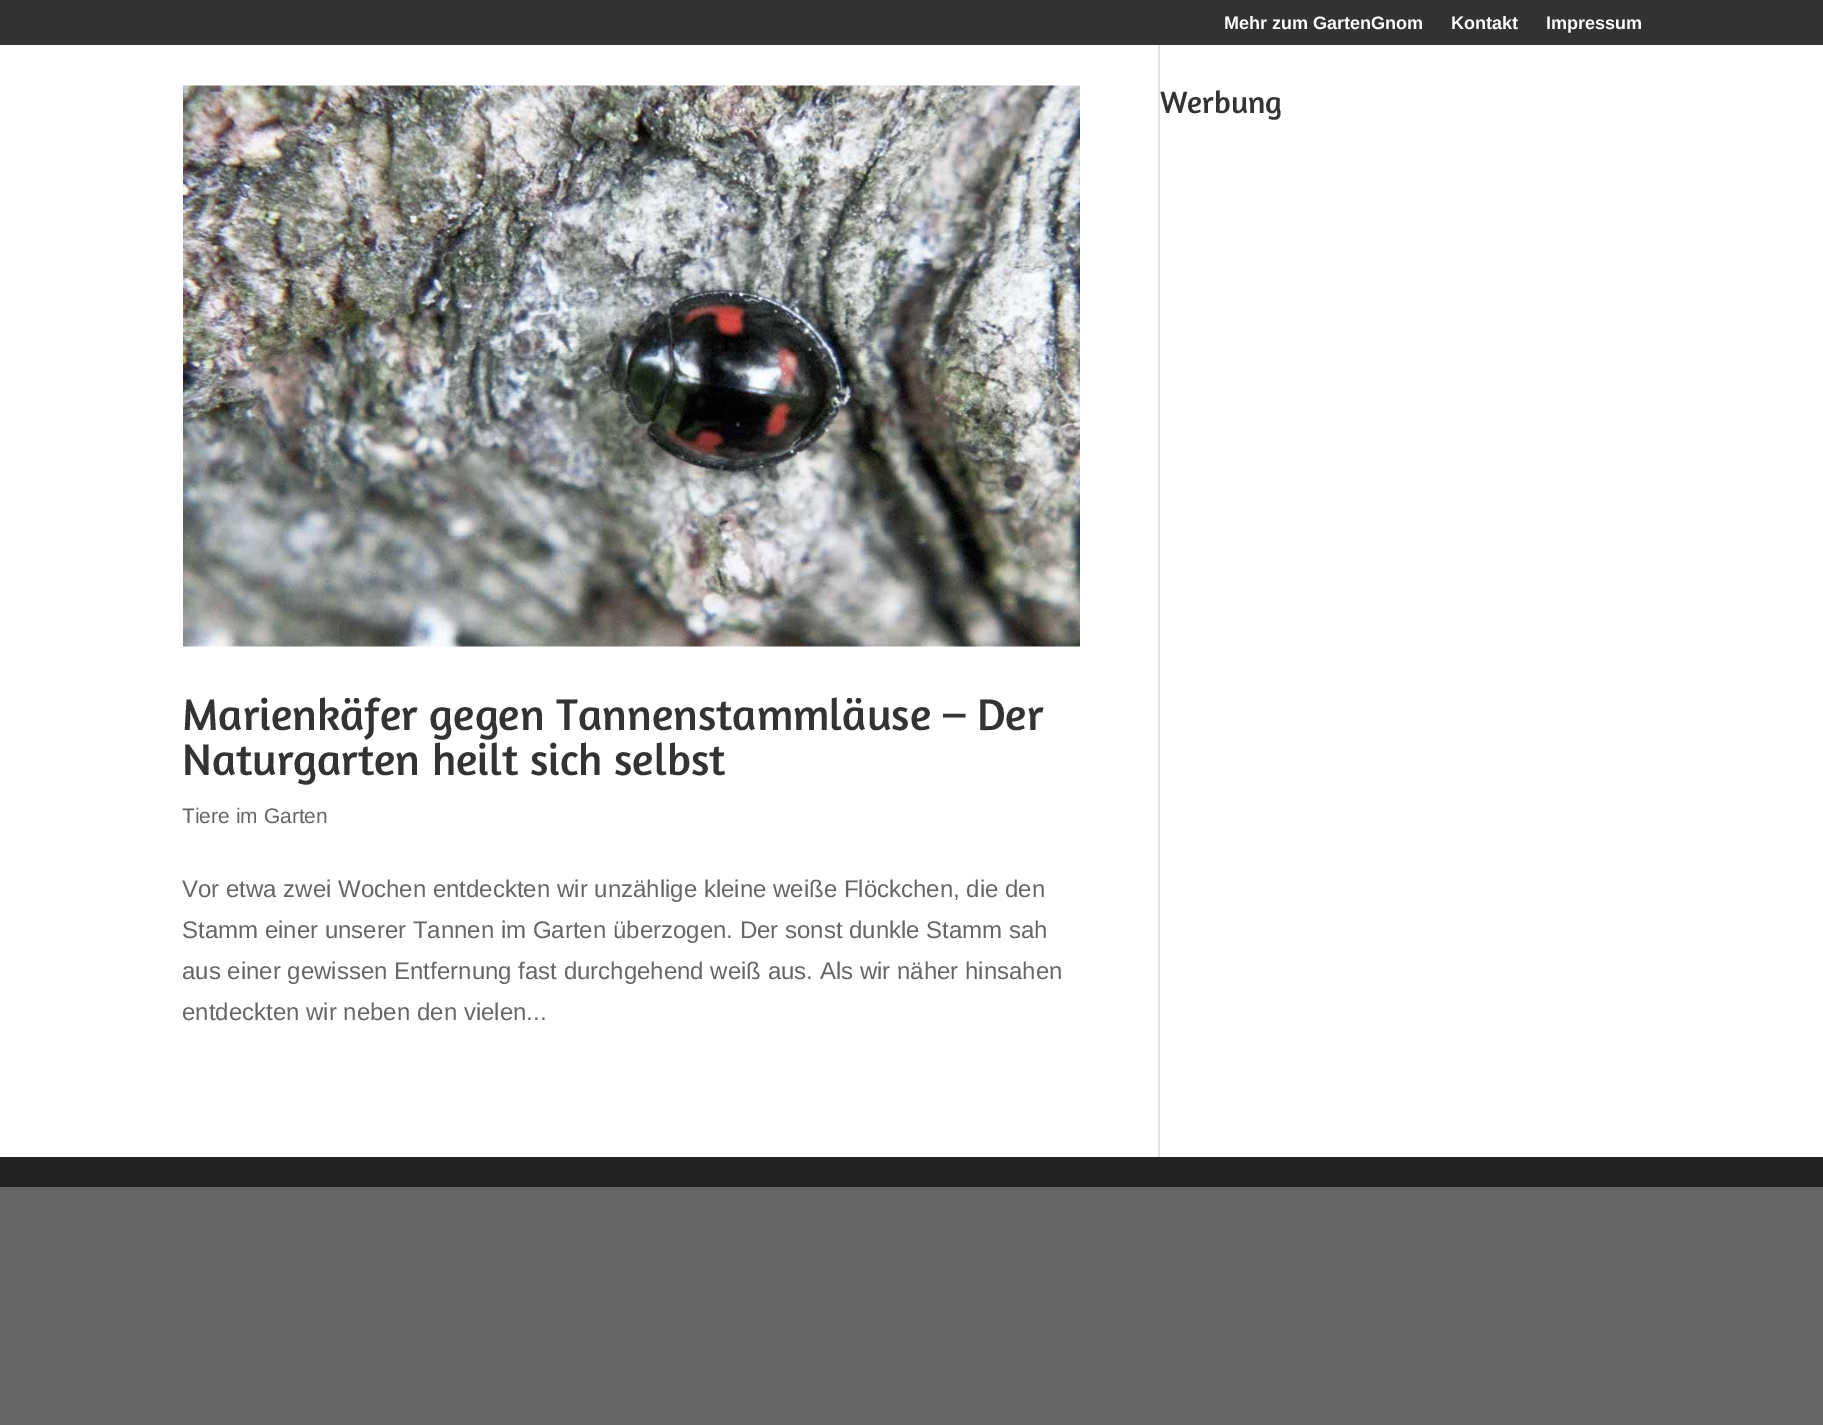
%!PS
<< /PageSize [1823 1425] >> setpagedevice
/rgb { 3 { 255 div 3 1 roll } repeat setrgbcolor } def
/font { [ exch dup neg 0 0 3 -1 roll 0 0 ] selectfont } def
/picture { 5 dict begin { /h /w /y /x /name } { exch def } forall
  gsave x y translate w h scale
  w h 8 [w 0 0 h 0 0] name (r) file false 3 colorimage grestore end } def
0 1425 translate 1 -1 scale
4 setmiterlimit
102 102 102 rgb
0 0 1823 1425 rectfill
[
  [0 0 1823 45 51 51 51]
  [0 45 1823 1112 255 255 255]
  [1158 45 2 1112 226 226 226]
] { aload pop rgb rectfill } forall
(img/1.rgb) 183 85 897 562 picture
35 35 35 rgb
0 1157 1823 30 rectfill
/LiberationSans-Bold 18 font
255 255 255 rgb
[
  [(Mehr zum GartenGnom) 1224 29]
  [(Kontakt) 1451 29]
  [(Impressum) 1546 29]
] { aload pop moveto show } forall
/Amaranth-Regular 31.5 font
51 51 51 rgb
1160 113 moveto (Werbung) show
/Amaranth-Regular 45 font
182 730 moveto (Marienkäfer gegen Tannenstammläuse – Der) show
182 775 moveto (Naturgarten heilt sich selbst) show
/LiberationSans-Regular 21 font
102 102 102 rgb
182 823 moveto (Tiere im Garten) show
/LiberationSans-Regular 24 font
[
  [(Vor etwa zwei Wochen entdeckten wir unzählige kleine weiße Flöckchen, die den) 182 897]
  [(Stamm einer unserer Tannen im Garten überzogen. Der sonst dunkle Stamm sah) 182 938]
  [(aus einer gewissen Entfernung fast durchgehend weiß aus. Als wir näher hinsahen) 182 979]
  [(entdeckten wir neben den vielen...) 182 1020]
] { aload pop moveto show } forall
showpage
